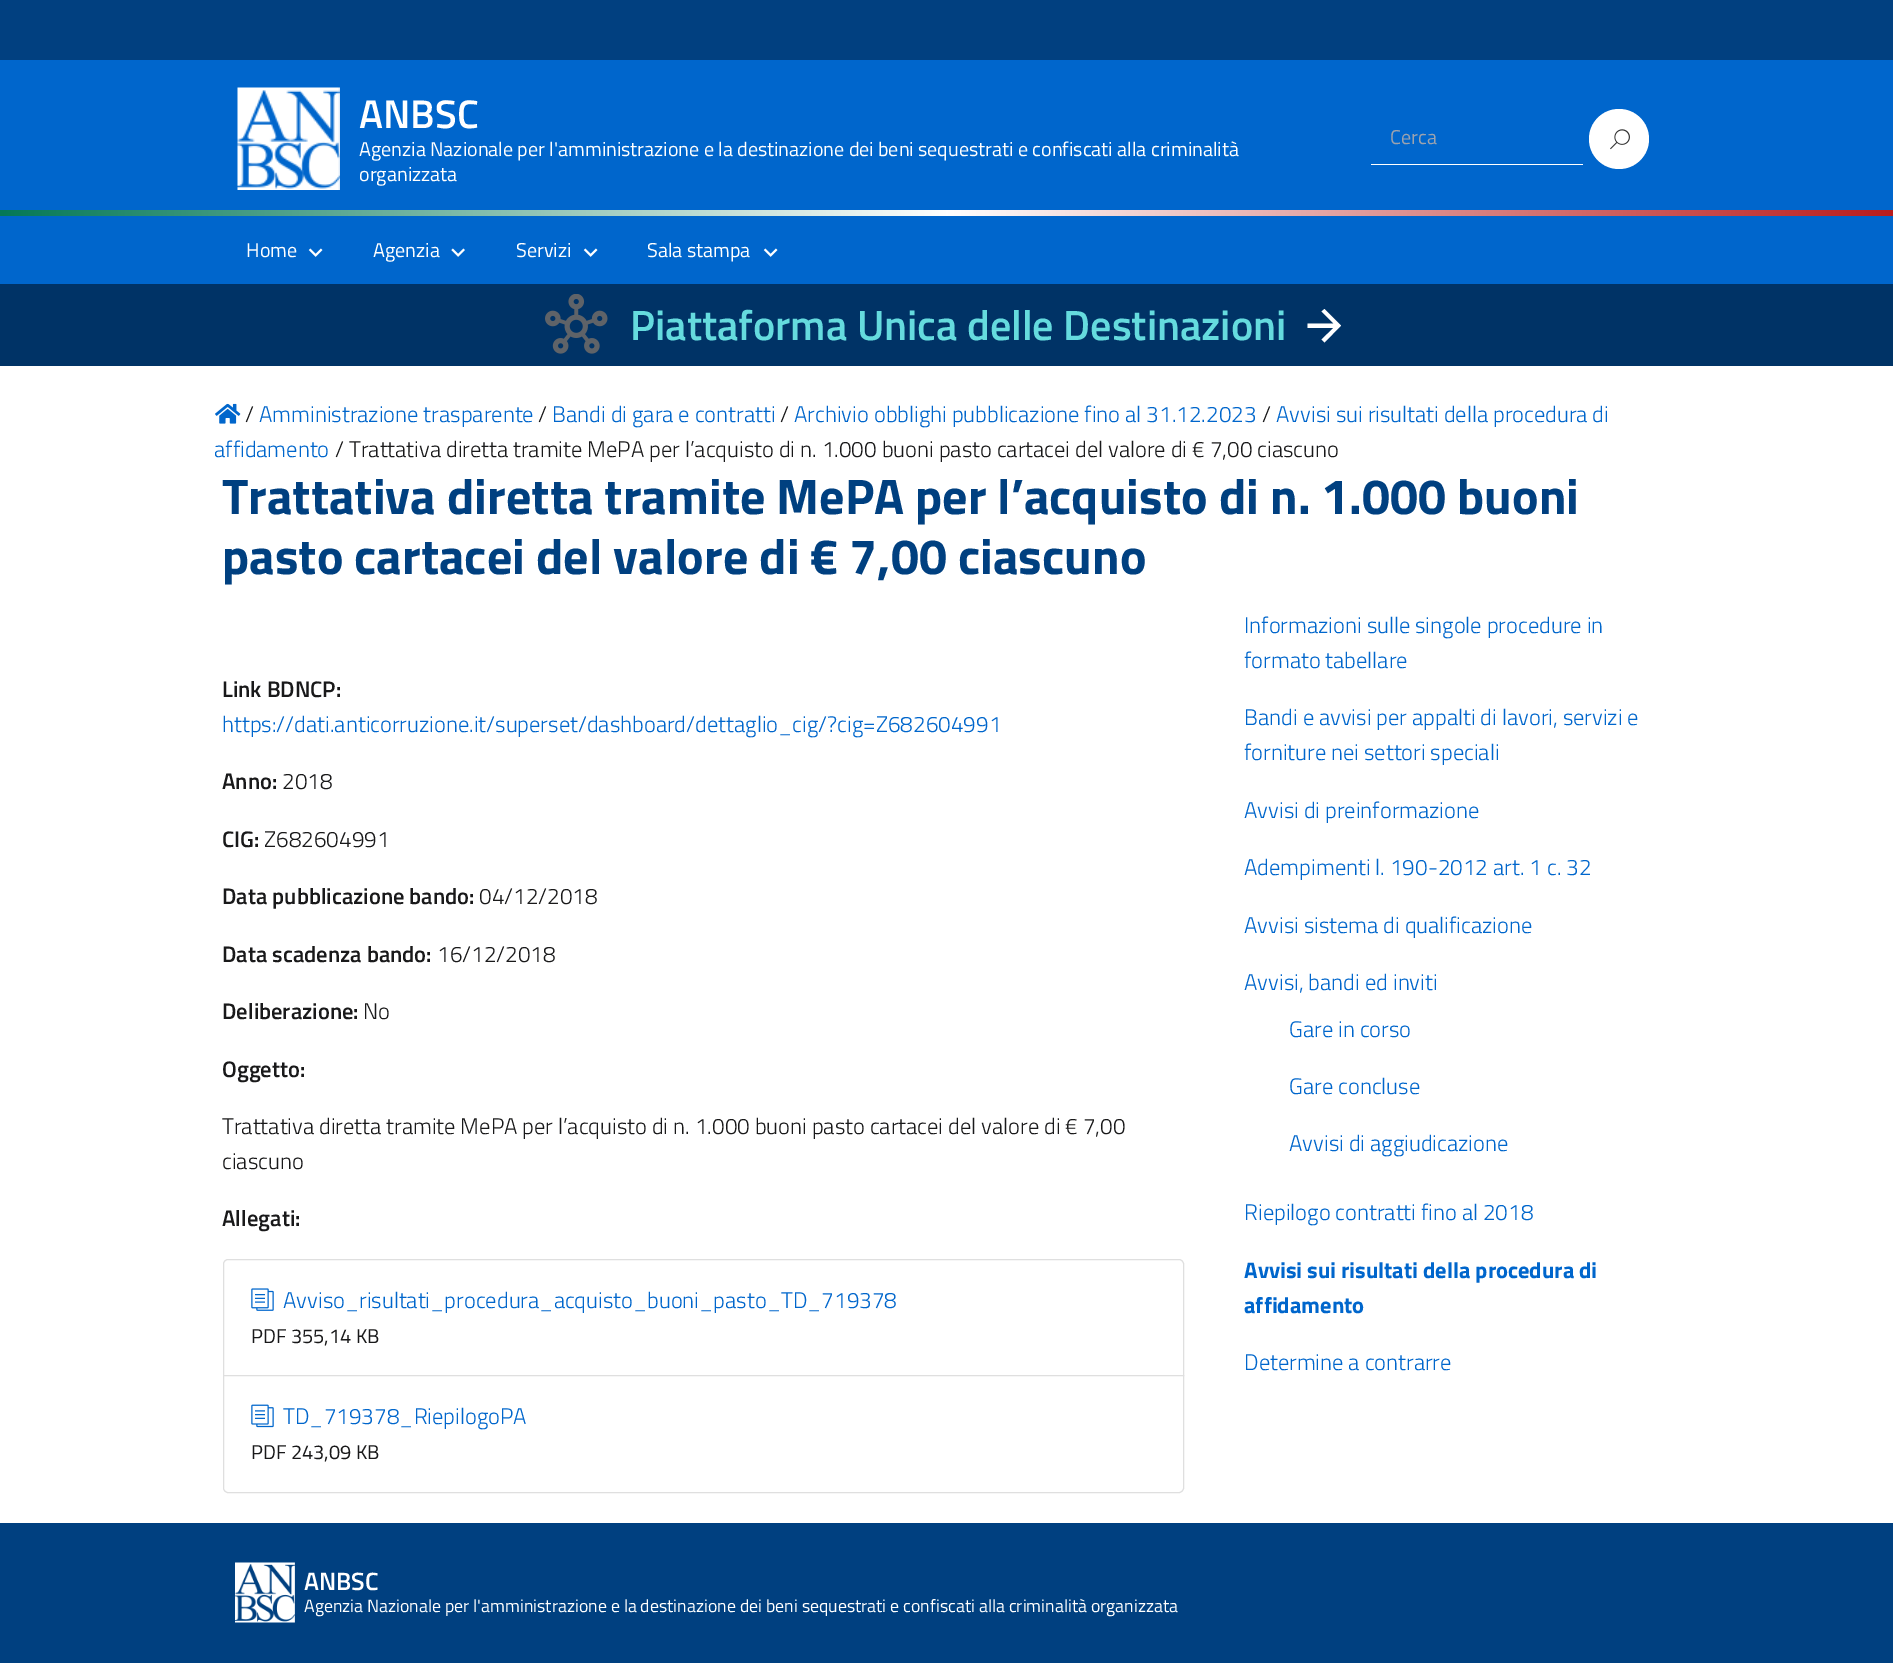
%!PS
<< /PageSize [1893 1663] >> setpagedevice
/rgb { 3 { 255 div 3 1 roll } repeat setrgbcolor } def
/font { [ exch dup neg 0 0 3 -1 roll 0 0 ] selectfont } def
/circle { newpath 0 360 arc closepath } def
/picture { 5 dict begin { /h /w /y /x /name } { exch def } forall
  gsave x y translate w h scale
  w h 8 [w 0 0 h 0 0] name (r) file false 3 colorimage grestore end } def
0 1663 translate 1 -1 scale
4 setmiterlimit
255 255 255 rgb
0 0 1893 1663 rectfill
0 102 204 rgb
0 60 1893 224 rectfill
1 64 128 rgb
0 0 1893 60 rectfill
(img/1.rgb) 237 87 103 103 picture
255 255 255 rgb
1371 164 212 1 rectfill
1619 139 30 circle fill
(img/2.rgb) 1610 129 20 21 picture
gsave 0 210 moveto 1893 210 lineto 1893 216 lineto 0 216 lineto closepath clip newpath
<< /ShadingType 2 /ColorSpace /DeviceRGB /Coords [0 213 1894 213] /Extend [true true] /Function << /FunctionType 3 /Domain [0 1] /Functions [<< /FunctionType 2 /Domain [0 1] /C0 [0.016 0.471 0.341] /C1 [1 1 1] /N 1 >> << /FunctionType 2 /Domain [0 1] /C0 [1 1 1] /C1 [0.725 0.11 0.11] /N 1 >>] /Bounds [0.5] /Encode [0 1 0 1] >> >> shfill grestore
(img/3.rgb) 308 248 15 9 picture
(img/4.rgb) 451 248 14 9 picture
(img/3.rgb) 583 248 15 9 picture
(img/3.rgb) 763 248 15 9 picture
0 51 102 rgb
0 284 1893 82 rectfill
(img/5.rgb) 545 294 63 60 picture
255 255 255 rgb
1307.5 328 moveto 1333.5 328 lineto 1321.5 339.5 lineto 1324.5 342.5 lineto 1341 325.5 lineto 1324.5 309 lineto 1321.5 311.5 lineto 1333.5 323.5 lineto 1307.5 323.5 lineto closepath fill
(img/6.rgb) 215 403 26 21 picture
223 223 223 rgb
228 1259.5 moveto 1179 1259.5 lineto 1181.5 1259.5 1183.5 1261.5 1183.5 1264 curveto 1183.5 1375.5 lineto 223.5 1375.5 lineto 223.5 1264 lineto 223.5 1261.5 225.5 1259.5 228 1259.5 curveto closepath stroke
(img/7.rgb) 251 1288 23 23 picture
255 255 255 rgb
223.5 1375.5 moveto 1183.5 1375.5 lineto 1183.5 1488 lineto 1183.5 1490.5 1181.5 1492.5 1179 1492.5 curveto 228 1492.5 lineto 225.5 1492.5 223.5 1490.5 223.5 1488 curveto closepath gsave fill grestore
223 223 223 rgb
stroke
(img/8.rgb) 251 1404 23 24 picture
0 64 128 rgb
0 1523 1893 140 rectfill
(img/9.rgb) 235 1562 60 61 picture
/TitilliumWeb-SemiBold 40 font
255 255 255 rgb
359 128 moveto (ANBSC) show
/TitilliumWeb-Regular 20 font
359 156 moveto (Agenzia Nazionale per l'amministrazione e la destinazione dei beni sequestrati e confiscati alla criminalità) show
359 181 moveto (organizzata) show
156 163 175 rgb
1390 144 moveto (Cerca) show
255 255 255 rgb
[
  [(Home) 246 257]
  [(Agenzia) 373 257]
  [(Servizi) 516 257]
  [(Sala stampa) 647 257]
] { aload pop moveto show } forall
/TitilliumWeb-SemiBold 42.25 font
101 219 222 rgb
630 340 moveto (Piattaforma Unica delle Destinazioni) show
/TitilliumWeb-Light 22.5 font
25 25 26 rgb
245 422 moveto (/) show
0 102 204 rgb
259 422 moveto (Amministrazione trasparente) show
25 25 26 rgb
538 422 moveto (/) show
0 102 204 rgb
552 422 moveto (Bandi di gara e contratti) show
25 25 26 rgb
780 422 moveto (/) show
0 102 204 rgb
794 422 moveto (Archivio obblighi pubblicazione fino al 31.12.2023) show
25 25 26 rgb
1262 422 moveto (/) show
0 102 204 rgb
1276 422 moveto (Avvisi sui risultati della procedura di) show
214 457 moveto (affidamento) show
25 25 26 rgb
335 457 moveto (/ Trattativa diretta tramite MePA per l’acquisto di n. 1.000 buoni pasto cartacei del valore di € 7,00 ciascuno) show
/TitilliumWeb-Bold 50 font
0 64 128 rgb
222 514 moveto (Trattativa diretta tramite MePA per l’acquisto di n. 1.000 buoni) show
222 574 moveto (pasto cartacei del valore di € 7,00 ciascuno) show
/TitilliumWeb-SemiBold 22.5 font
25 25 26 rgb
222 697 moveto (Link BDNCP:) show
/TitilliumWeb-Light 22.5 font
0 102 204 rgb
222 732 moveto (https://dati.anticorruzione.it/superset/dashboard/dettaglio_cig/?cig=Z682604991) show
/TitilliumWeb-SemiBold 22.5 font
25 25 26 rgb
222 789 moveto (Anno:) show
/TitilliumWeb-Light 22.5 font
282 789 moveto (2018) show
/TitilliumWeb-SemiBold 22.5 font
222 847 moveto (CIG:) show
/TitilliumWeb-Light 22.5 font
264 847 moveto (Z682604991) show
/TitilliumWeb-SemiBold 22.5 font
222 904 moveto (Data pubblicazione bando:) show
/TitilliumWeb-Light 22.5 font
479 904 moveto (04/12/2018) show
/TitilliumWeb-SemiBold 22.5 font
222 962 moveto (Data scadenza bando:) show
/TitilliumWeb-Light 22.5 font
437 962 moveto (16/12/2018) show
/TitilliumWeb-SemiBold 22.5 font
222 1019 moveto (Deliberazione:) show
/TitilliumWeb-Light 22.5 font
363 1019 moveto (No) show
/TitilliumWeb-SemiBold 22.5 font
222 1077 moveto (Oggetto:) show
/TitilliumWeb-Light 22.5 font
222 1134 moveto (Trattativa diretta tramite MePA per l’acquisto di n. 1.000 buoni pasto cartacei del valore di € 7,00) show
222 1169 moveto (ciascuno) show
/TitilliumWeb-SemiBold 22.5 font
222 1226 moveto (Allegati:) show
/TitilliumWeb-Light 22.5 font
0 102 204 rgb
283 1308 moveto (Avviso_risultati_procedura_acquisto_buoni_pasto_TD_719378) show
/TitilliumWeb-Regular 20 font
25 25 26 rgb
251 1343 moveto (PDF 355,14 KB) show
/TitilliumWeb-Light 22.5 font
0 102 204 rgb
283 1424 moveto (TD_719378_RiepilogoPA) show
/TitilliumWeb-Regular 20 font
25 25 26 rgb
251 1459 moveto (PDF 243,09 KB) show
/TitilliumWeb-Light 22.5 font
0 102 204 rgb
[
  [(Informazioni sulle singole procedure in) 1244 633]
  [(formato tabellare) 1244 668]
  [(Bandi e avvisi per appalti di lavori, servizi e) 1244 725]
  [(forniture nei settori speciali) 1244 760]
  [(Avvisi di preinformazione) 1244 818]
  [(Adempimenti l. 190-2012 art. 1 c. 32) 1244 875]
  [(Avvisi sistema di qualificazione) 1244 933]
  [(Avvisi, bandi ed inviti) 1244 990]
  [(Gare in corso) 1289 1037]
  [(Gare concluse) 1289 1094]
  [(Avvisi di aggiudicazione) 1289 1151]
  [(Riepilogo contratti fino al 2018) 1244 1220]
] { aload pop moveto show } forall
/TitilliumWeb-Bold 22.5 font
1244 1278 moveto (Avvisi sui risultati della procedura di) show
1244 1313 moveto (affidamento) show
/TitilliumWeb-Light 22.5 font
1244 1370 moveto (Determine a contrarre) show
/TitilliumWeb-SemiBold 25 font
255 255 255 rgb
304 1590 moveto (ANBSC) show
/TitilliumWeb-Regular 17.8 font
304 1612 moveto (Agenzia Nazionale per l'amministrazione e la destinazione dei beni sequestrati e confiscati alla criminalità organizzata) show
showpage
